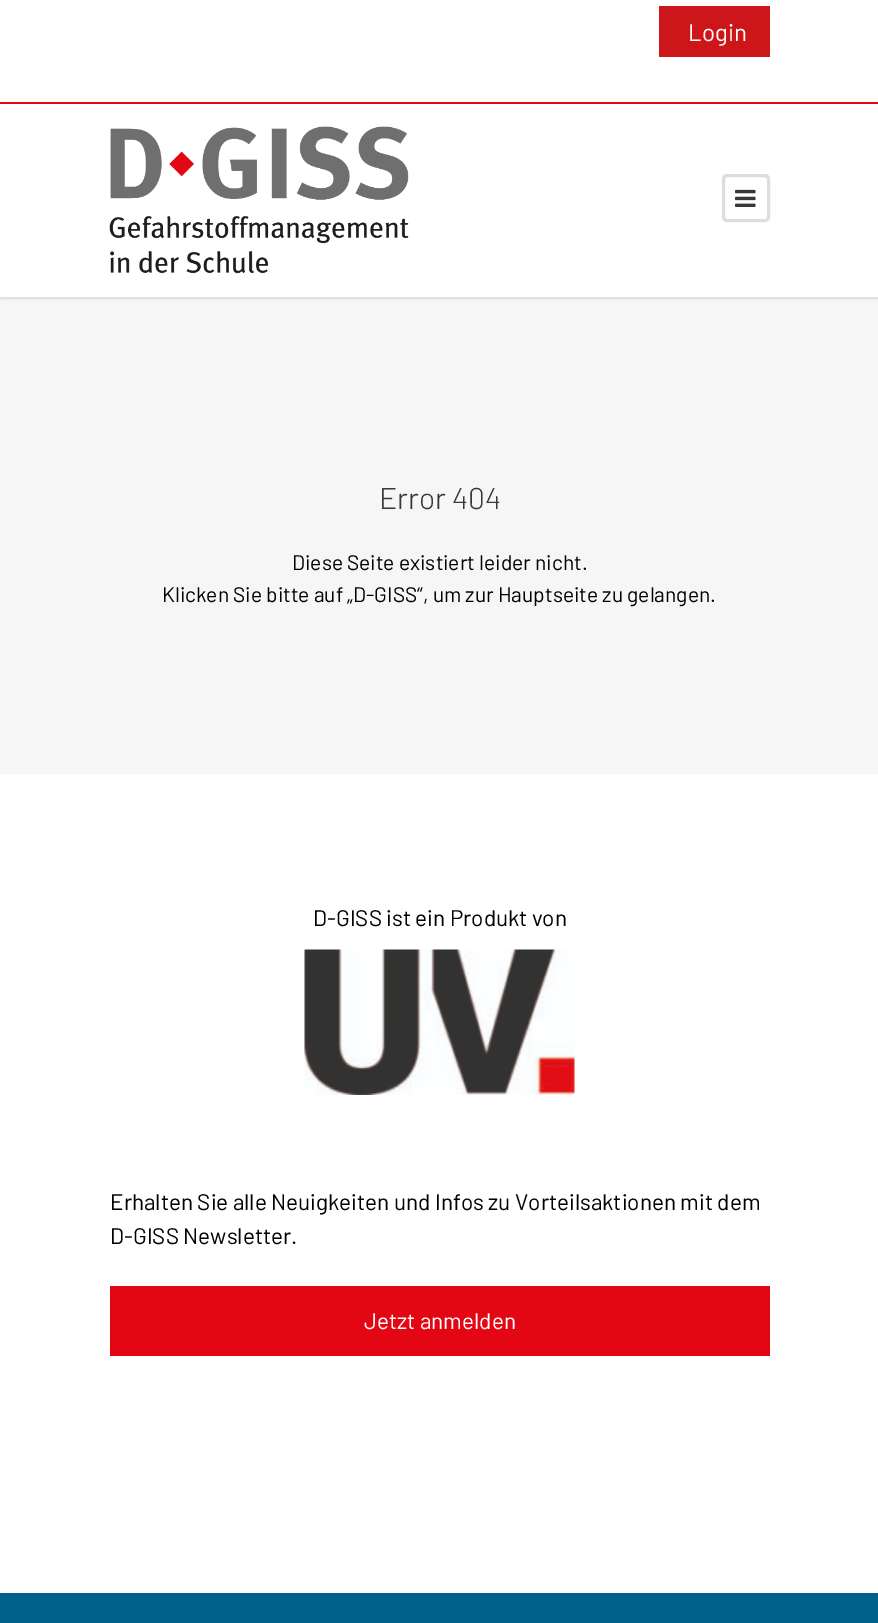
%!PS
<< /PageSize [878 1623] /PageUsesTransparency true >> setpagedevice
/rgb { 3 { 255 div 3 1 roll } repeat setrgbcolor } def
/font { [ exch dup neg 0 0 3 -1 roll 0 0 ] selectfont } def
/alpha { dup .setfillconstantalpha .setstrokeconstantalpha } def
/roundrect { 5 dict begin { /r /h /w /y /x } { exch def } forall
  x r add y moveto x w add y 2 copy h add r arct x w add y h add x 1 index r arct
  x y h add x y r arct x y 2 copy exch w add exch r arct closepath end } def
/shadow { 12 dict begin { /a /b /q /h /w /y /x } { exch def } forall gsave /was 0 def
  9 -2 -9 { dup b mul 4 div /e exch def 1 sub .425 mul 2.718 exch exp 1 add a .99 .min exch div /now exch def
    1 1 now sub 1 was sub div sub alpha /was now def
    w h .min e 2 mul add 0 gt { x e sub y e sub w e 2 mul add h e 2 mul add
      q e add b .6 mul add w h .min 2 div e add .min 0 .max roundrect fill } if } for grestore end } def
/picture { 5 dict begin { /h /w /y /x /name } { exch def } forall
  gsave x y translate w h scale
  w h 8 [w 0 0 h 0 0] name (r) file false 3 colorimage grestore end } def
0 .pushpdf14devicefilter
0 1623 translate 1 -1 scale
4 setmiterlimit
255 255 255 rgb
0 0 878 1623 rectfill
[
  [0 102 878 2 227 6 19]
  [659 6 111 51 205 22 25]
  [0 297 878 477 246 246 246]
] { aload pop rgb rectfill } forall
gsave
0 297 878 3 rectclip
0 0 0 rgb
0 105 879 194 0 1.5 0.1 shadow
grestore
(img/1.rgb) 109 126 300 148 picture
221 221 221 rgb
3 setlinewidth
723.5 175.5 45 45 3.5 roundrect stroke
(img/2.rgb) 735 189 21 18 picture
(img/3.rgb) 304 949 271 146 picture
227 6 19 rgb
110 1286 660 70 rectfill
0 98 139 rgb
0 1593 878 30 rectfill
/Barlow-Regular 24 font
255 255 255 rgb
688 41 moveto (Login) show
/Barlow-Light 30 font
56 56 56 rgb
379 509 moveto (Error 404) show
/Barlow-Regular 21 font
0 0 0 rgb
292 570 moveto (Diese Seite existiert leider nicht.) show
162 602 moveto (Klicken Sie bitte auf „D-GISS“, um zur Hauptseite zu gelangen.) show
/Barlow-Regular 22.5 font
[
  [(D-GISS ist ein Produkt von) 313 926]
  [(Erhalten Sie alle Neuigkeiten und Infos zu Vorteilsaktionen mit dem) 110 1210]
  [(D-GISS Newsletter.) 110 1244]
] { aload pop moveto show } forall
255 255 255 rgb
364 1329 moveto (Jetzt anmelden) show
.poppdf14devicefilter showpage
